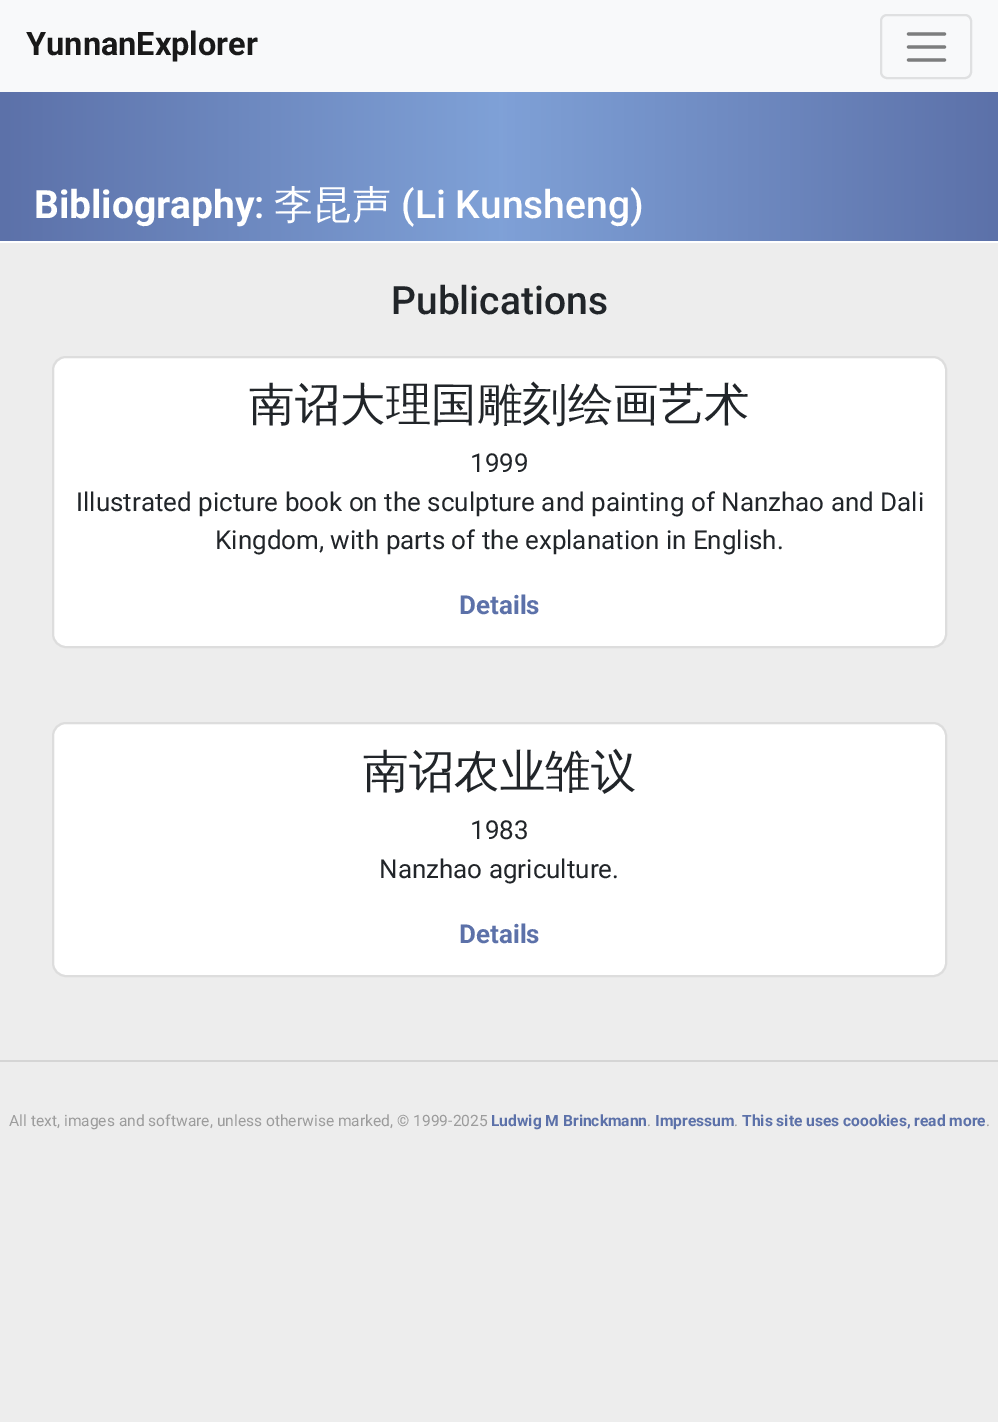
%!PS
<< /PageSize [998 1422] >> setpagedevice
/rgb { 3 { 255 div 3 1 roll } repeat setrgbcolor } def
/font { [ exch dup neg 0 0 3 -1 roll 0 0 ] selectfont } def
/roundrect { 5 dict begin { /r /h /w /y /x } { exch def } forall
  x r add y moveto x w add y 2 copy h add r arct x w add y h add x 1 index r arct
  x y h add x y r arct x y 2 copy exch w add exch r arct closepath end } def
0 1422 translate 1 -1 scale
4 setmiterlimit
237 237 237 rgb
0 0 998 1422 rectfill
248 249 250 rgb
0 0 998 92 rectfill
223 224 225 rgb
2 setlinewidth
881 15 90 63 6 roundrect stroke
124 125 125 rgb
3.2 setlinewidth
1 setlinecap
908.5 34 moveto 944.5 34 lineto 908.5 47 moveto 944.5 47 lineto 908.5 60 moveto 944.5 60 lineto stroke
gsave 0 92 moveto 998 92 lineto 998 241 lineto 0 241 lineto closepath clip newpath
<< /ShadingType 2 /ColorSpace /DeviceRGB /Coords [0 241 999 241] /Extend [true true] /Function << /FunctionType 3 /Domain [0 1] /Functions [<< /FunctionType 2 /Domain [0 1] /C0 [0.361 0.443 0.663] /C1 [0.498 0.631 0.843] /N 1 >> << /FunctionType 2 /Domain [0 1] /C0 [0.498 0.631 0.843] /C1 [0.361 0.443 0.663] /N 1 >>] /Bounds [0.5] /Encode [0 1 0 1] >> >> shfill grestore
255 255 255 rgb
0 241 998 2 rectfill
53 357 893 290 13 roundrect gsave fill grestore
221 221 221 rgb
2 setlinewidth
0 setlinecap
stroke
255 255 255 rgb
53 723 893 253 13 roundrect gsave fill grestore
221 221 221 rgb
stroke
213 213 213 rgb
0 1060 998 2 rectfill
/Roboto-Bold 32.5 font
25 25 25 rgb
26 55 moveto (YunnanExplorer) show
/Roboto-Bold 39 font
255 255 255 rgb
34 218 moveto (Bibliography) show
/Roboto-Medium 39 font
254 218 moveto (:) show
/WenQuanYiZenHei-Medium 39 font
274 218 moveto (李昆声) show
/Roboto-Medium 39 font
401 218 moveto (\(Li Kunsheng\)) show
33 37 41 rgb
391 314 moveto (Publications) show
/WenQuanYiZenHei-Medium 45.5 font
249 420 moveto (南诏大理国雕刻绘画艺术) show
/Roboto-Regular 26 font
[
  [(1999) 470 472]
  [(Illustrated picture book on the sculpture and painting of Nanzhao and Dali) 76 511]
  [(Kingdom, with parts of the explanation in English.) 215 549]
] { aload pop moveto show } forall
/Roboto-Bold 26 font
92 113 169 rgb
459 614 moveto (Details) show
/WenQuanYiZenHei-Medium 45.5 font
33 37 41 rgb
363 787 moveto (南诏农业雏议) show
/Roboto-Regular 26 font
470 839 moveto (1983) show
379 878 moveto (Nanzhao agriculture.) show
/Roboto-Bold 26 font
92 113 169 rgb
459 943 moveto (Details) show
/Roboto-Regular 15.6 font
156 156 156 rgb
9 1126 moveto (All text, images and software, unless otherwise marked, © 1999-2025) show
/Roboto-Bold 15.6 font
92 113 169 rgb
491 1126 moveto (Ludwig M Brinckmann) show
/Roboto-Regular 15.6 font
156 156 156 rgb
647 1126 moveto (.) show
/Roboto-Bold 15.6 font
92 113 169 rgb
655 1126 moveto (Impressum) show
/Roboto-Regular 15.6 font
156 156 156 rgb
734 1126 moveto (.) show
/Roboto-Bold 15.6 font
92 113 169 rgb
742 1126 moveto (This site uses coookies, read more) show
/Roboto-Regular 15.6 font
156 156 156 rgb
986 1126 moveto (.) show
showpage
